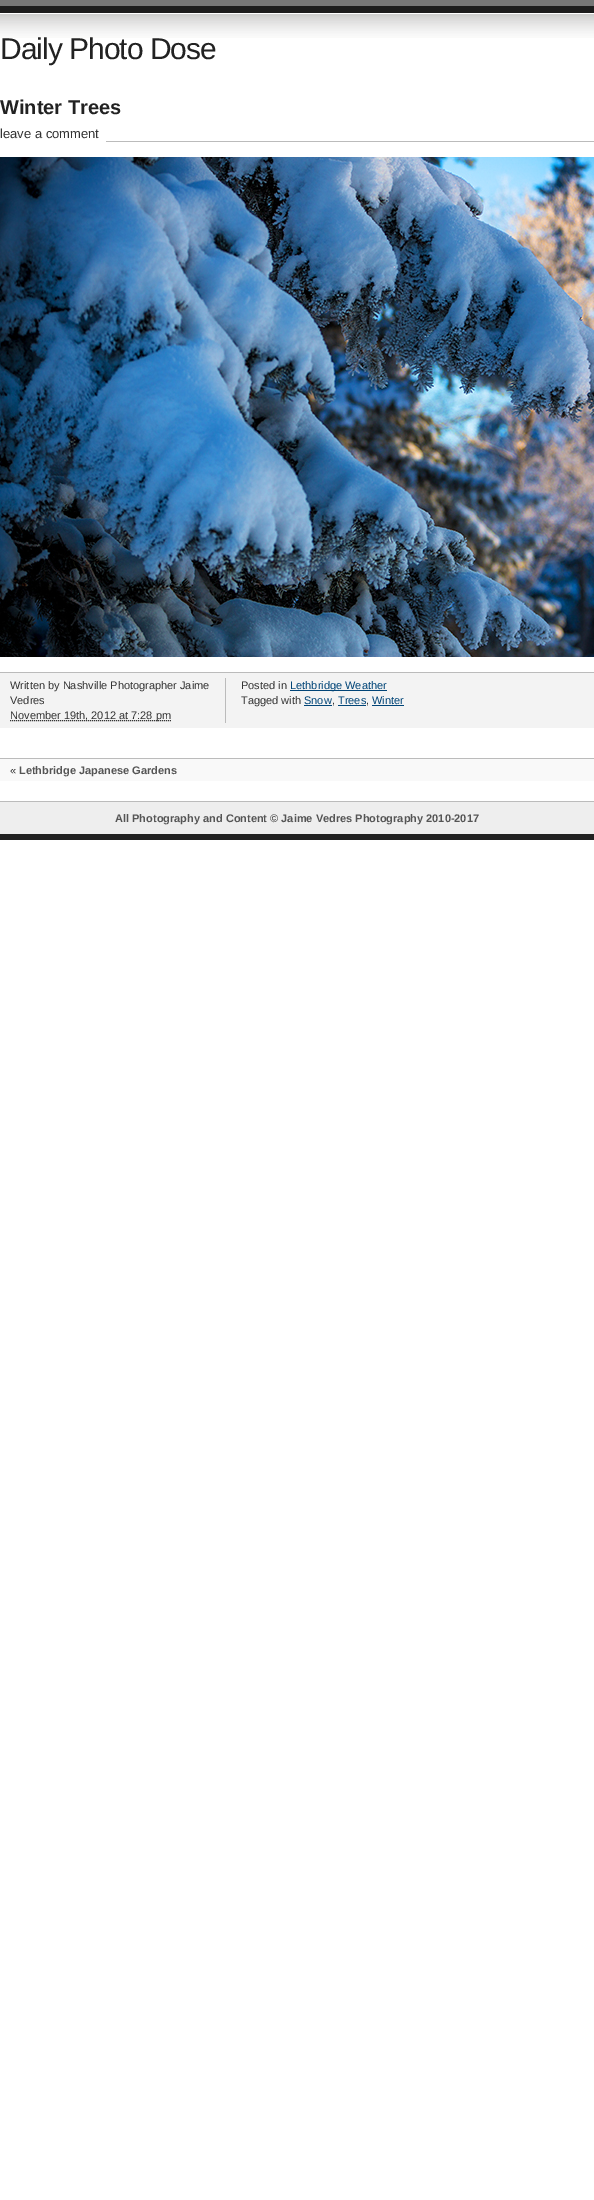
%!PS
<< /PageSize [594 2200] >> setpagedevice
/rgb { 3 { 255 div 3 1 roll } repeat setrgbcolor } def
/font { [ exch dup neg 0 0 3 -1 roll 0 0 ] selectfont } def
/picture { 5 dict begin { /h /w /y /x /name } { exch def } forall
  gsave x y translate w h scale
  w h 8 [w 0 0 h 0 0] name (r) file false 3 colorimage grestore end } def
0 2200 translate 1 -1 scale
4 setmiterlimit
255 255 255 rgb
0 0 594 2200 rectfill
(img/1.rgb) 0 0 594 38 picture
187 187 187 rgb
106 141 488 1 rectfill
(img/2.rgb) 0 157 594 500 picture
[
  [0 673 594 55 243 243 243]
  [0 672 594 1 187 187 187]
  [225 678 1 45 187 187 187]
] { aload pop rgb rectfill } forall
51 51 51 rgb
[1 1] 0 setdash
10 720.5 moveto 171 720.5 lineto stroke
[
  [290 690 97 1 0 68 119]
  [304 705 28 1 0 68 119]
  [338 705 28 1 0 68 119]
  [372 705 32 1 0 68 119]
  [0 759 594 22 249 249 249]
  [0 758 594 1 187 187 187]
  [0 802 594 32 238 238 238]
  [0 801 594 1 187 187 187]
  [0 834 594 6 34 34 34]
] { aload pop rgb rectfill } forall
/LiberationSans-Regular 30 font
0 59 moveto -1 0 (Daily Photo Dose) ashow
/LiberationSans-Bold 20 font
0 114 moveto (Winter Trees) show
/LiberationSans-Regular 13 font
51 51 51 rgb
0 138 moveto (leave a comment) show
/LiberationSans-Regular 11 font
[
  [(Written by Nashville Photographer Jaime) 10 689]
  [(Vedres) 10 704]
  [(November 19th, 2012 at 7:28 pm) 10 719]
  [(Posted in) 241 689]
] { aload pop moveto show } forall
0 68 119 rgb
290 689 moveto (Lethbridge Weather) show
51 51 51 rgb
241 704 moveto (Tagged with) show
0 68 119 rgb
304 704 moveto (Snow) show
51 51 51 rgb
332 704 moveto (,) show
0 68 119 rgb
338 704 moveto (Trees) show
51 51 51 rgb
366 704 moveto (,) show
0 68 119 rgb
372 704 moveto (Winter) show
34 34 34 rgb
10 774 moveto («) show
/LiberationSans-Bold 11 font
85 85 85 rgb
19 774 moveto (Lethbridge Japanese Gardens) show
115 822 moveto (All Photography and Content © Jaime Vedres Photography 2010-2017) show
showpage
